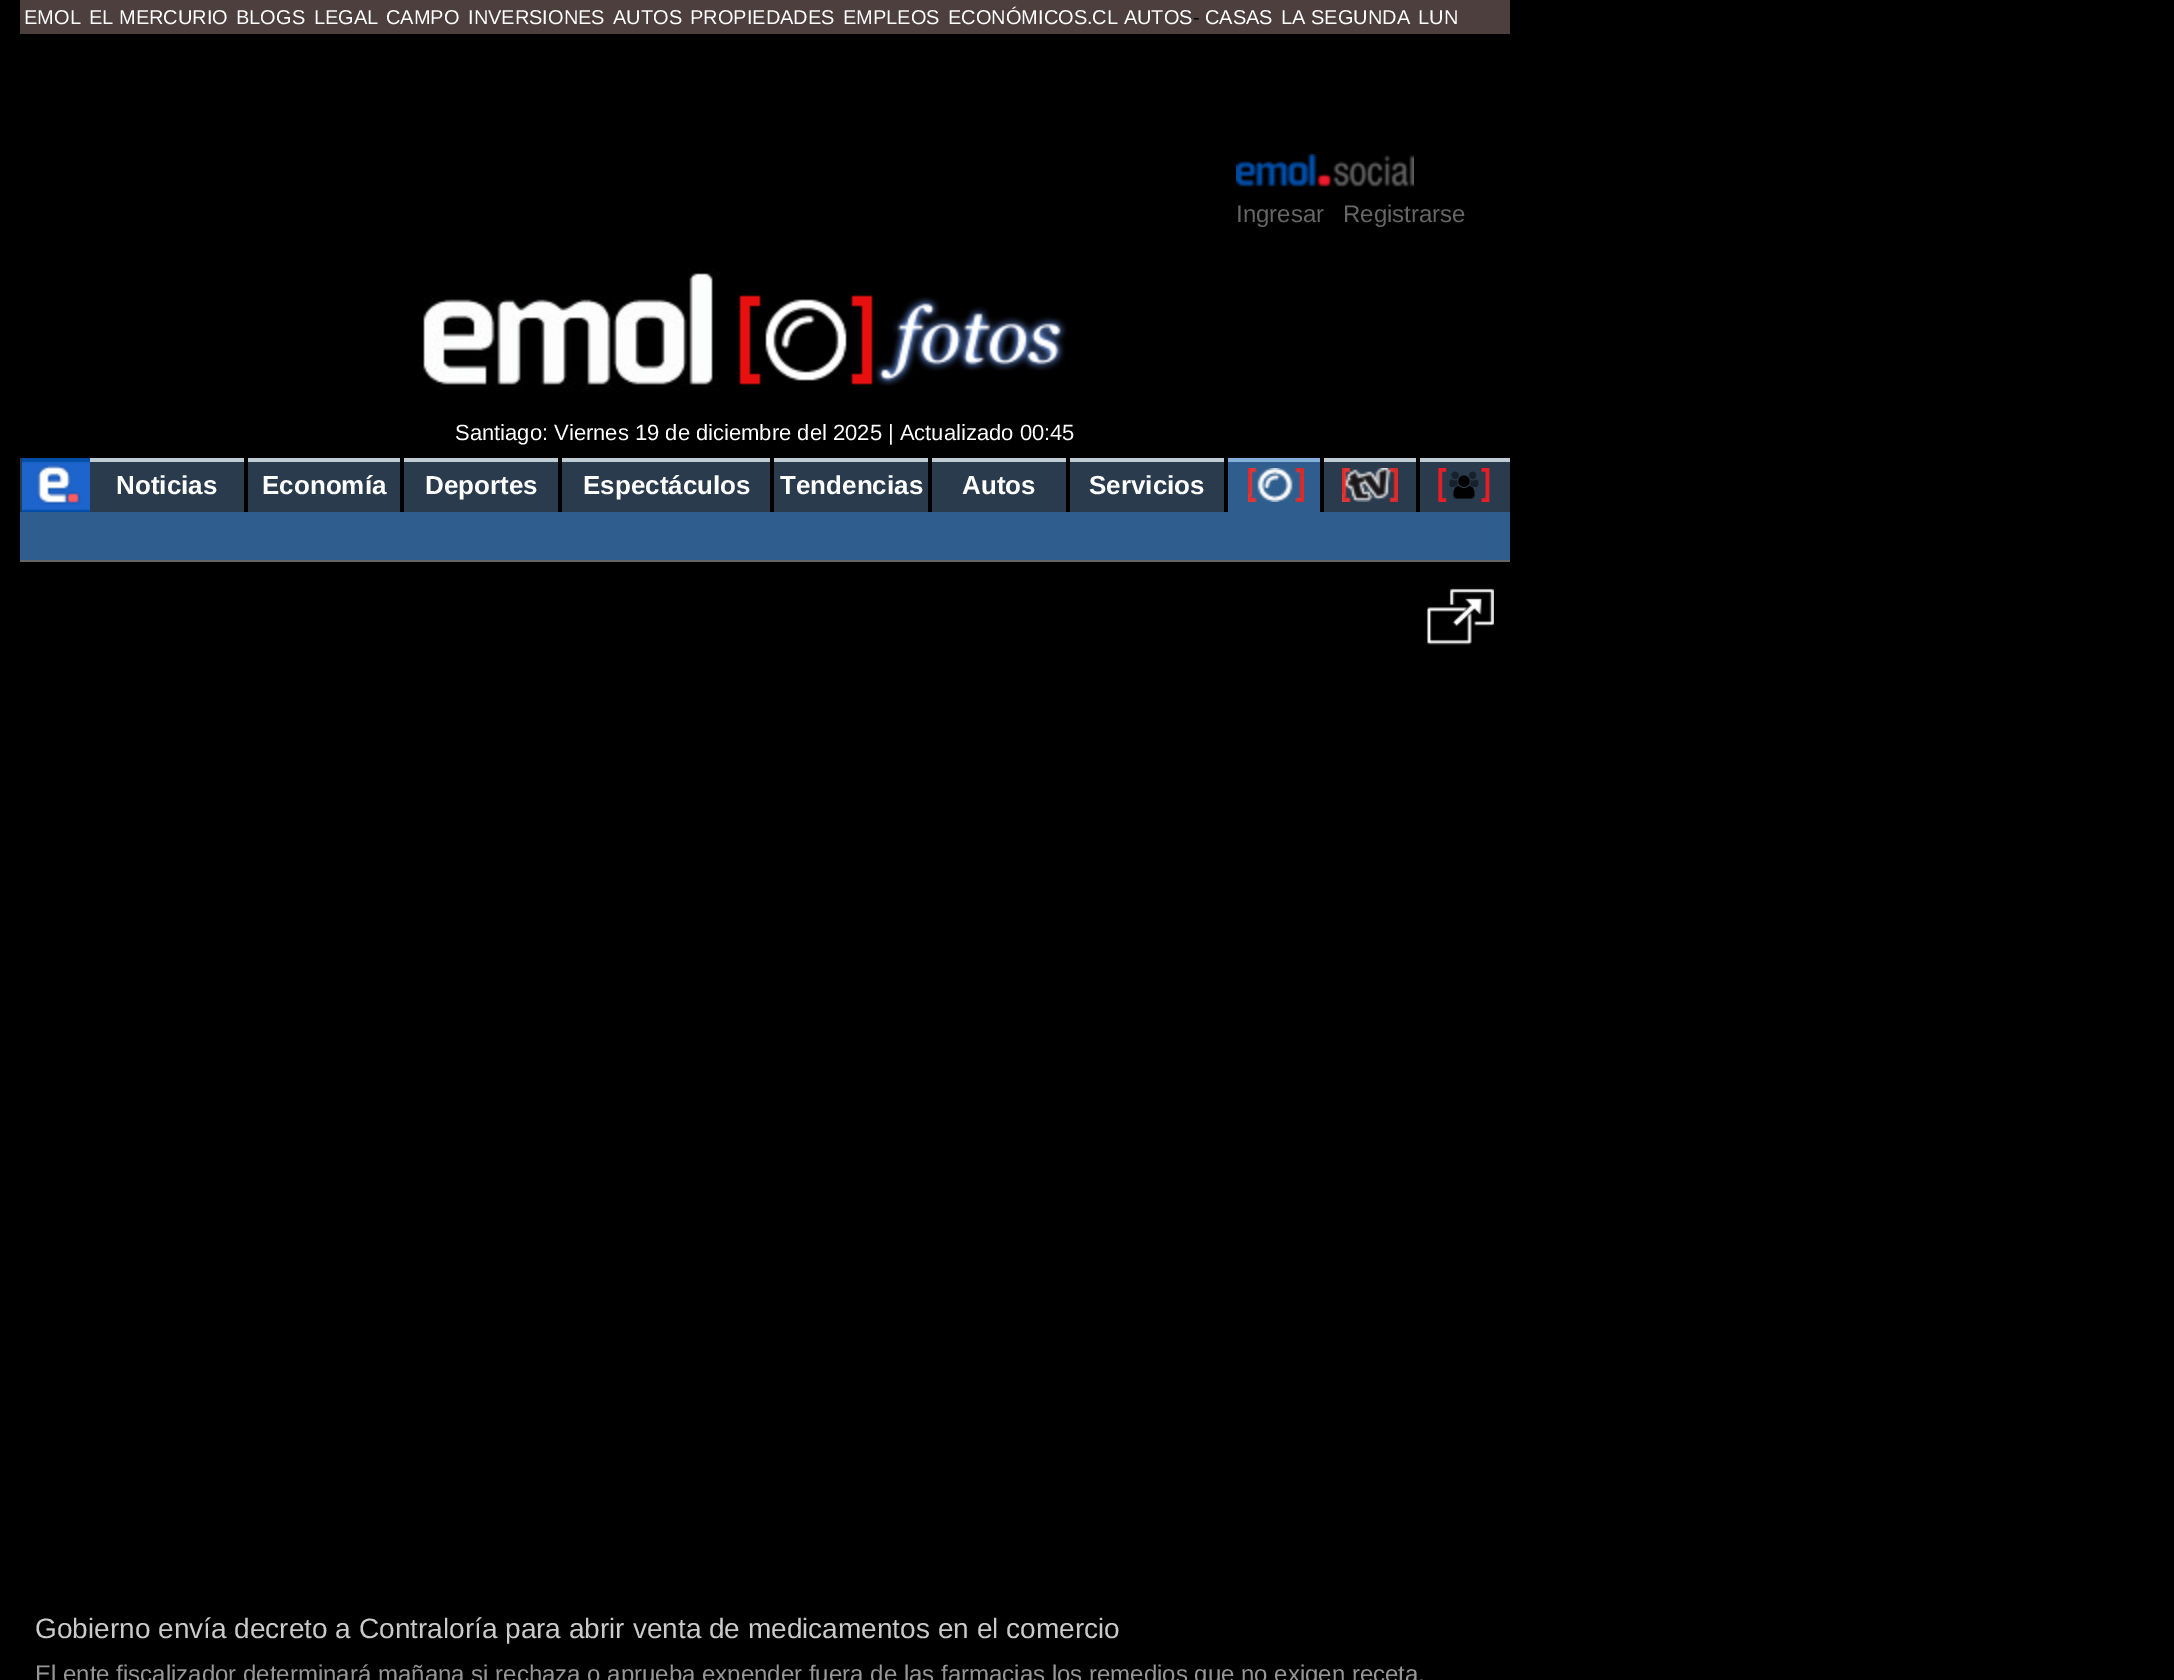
%!PS
<< /PageSize [2174 1680] >> setpagedevice
/rgb { 3 { 255 div 3 1 roll } repeat setrgbcolor } def
/font { [ exch dup neg 0 0 3 -1 roll 0 0 ] selectfont } def
/picture { 5 dict begin { /h /w /y /x /name } { exch def } forall
  gsave x y translate w h scale
  w h 8 [w 0 0 h 0 0] name (r) file false 3 colorimage grestore end } def
0 1680 translate 1 -1 scale
4 setmiterlimit
0 0 0 rgb
0 0 2174 1680 rectfill
77 63 62 rgb
20 0 1490 34 rectfill
(img/1.rgb) 1236 154 178 33 picture
(img/2.rgb) 423 266 297 126 picture
(img/3.rgb) 739 295 328 91 picture
41 59 77 rgb
20 458 2 54 rectfill
(img/4.rgb) 22 458 68 54 picture
[
  [90 462 154 50 41 59 77]
  [90 458 154 4 190 203 211]
  [248 462 152 50 41 59 77]
  [248 458 152 4 190 203 211]
  [404 462 154 50 41 59 77]
  [404 458 154 4 190 203 211]
  [562 462 208 50 41 59 77]
  [562 458 208 4 190 203 211]
  [774 462 154 50 41 59 77]
  [774 458 154 4 190 203 211]
  [932 462 134 50 41 59 77]
  [932 458 134 4 190 203 211]
  [1070 462 154 50 41 59 77]
  [1070 458 154 4 190 203 211]
  [1228 462 92 50 47 93 141]
  [1228 458 92 4 133 175 219]
] { aload pop rgb rectfill } forall
(img/5.rgb) 1248 468 56 34 picture
41 59 77 rgb
1324 462 92 50 rectfill
190 203 211 rgb
1324 458 92 4 rectfill
(img/6.rgb) 1342 468 56 34 picture
41 59 77 rgb
1420 462 90 50 rectfill
190 203 211 rgb
1420 458 90 4 rectfill
(img/7.rgb) 1438 468 52 34 picture
47 93 141 rgb
20 512 1490 48 rectfill
102 102 102 rgb
20 560 1490 2 rectfill
(img/8.rgb) 1426 588 68 57 picture
/LiberationSans-Regular 20 font
255 255 255 rgb
[
  [(EMOL) 24 24]
  [(EL MERCURIO) 89 24]
  [(BLOGS) 236 24]
  [(LEGAL) 314 24]
  [(CAMPO) 386 24]
  [(INVERSIONES) 468 24]
  [(AUTOS) 613 24]
  [(PROPIEDADES) 690 24]
  [(EMPLEOS) 843 24]
  [(ECONÓMICOS.CL AUTOS) 948 24]
] { aload pop moveto show } forall
0 0 0 rgb
1193 24 moveto (-) show
255 255 255 rgb
[
  [(CASAS) 1205 24]
  [(LA SEGUNDA) 1281 24]
  [(LUN) 1418 24]
] { aload pop moveto show } forall
/LiberationSans-Regular 24 font
102 102 102 rgb
1236 222 moveto (Ingresar) show
1343 222 moveto (Registrarse) show
/LiberationSans-Regular 22 font
255 255 255 rgb
455 440 moveto (Santiago: Viernes 19 de diciembre del 2025 | Actualizado 00:45) show
/LiberationSans-Bold 26 font
[
  [(Noticias) 116 494]
  [(Economía) 262 494]
  [(Deportes) 425 494]
  [(Espectáculos) 583 494]
  [(Tendencias) 780 494]
  [(Autos) 962 494]
  [(Servicios) 1089 494]
] { aload pop moveto show } forall
/LiberationSans-Regular 28 font
202 202 202 rgb
35 1638 moveto (Gobierno envía decreto a Contraloría para abrir venta de medicamentos en el comercio) show
/LiberationSans-Regular 24 font
150 150 150 rgb
35 1682 moveto (El ente fiscalizador determinará mañana si rechaza o aprueba expender fuera de las farmacias los remedios que no exigen receta.) show
showpage
